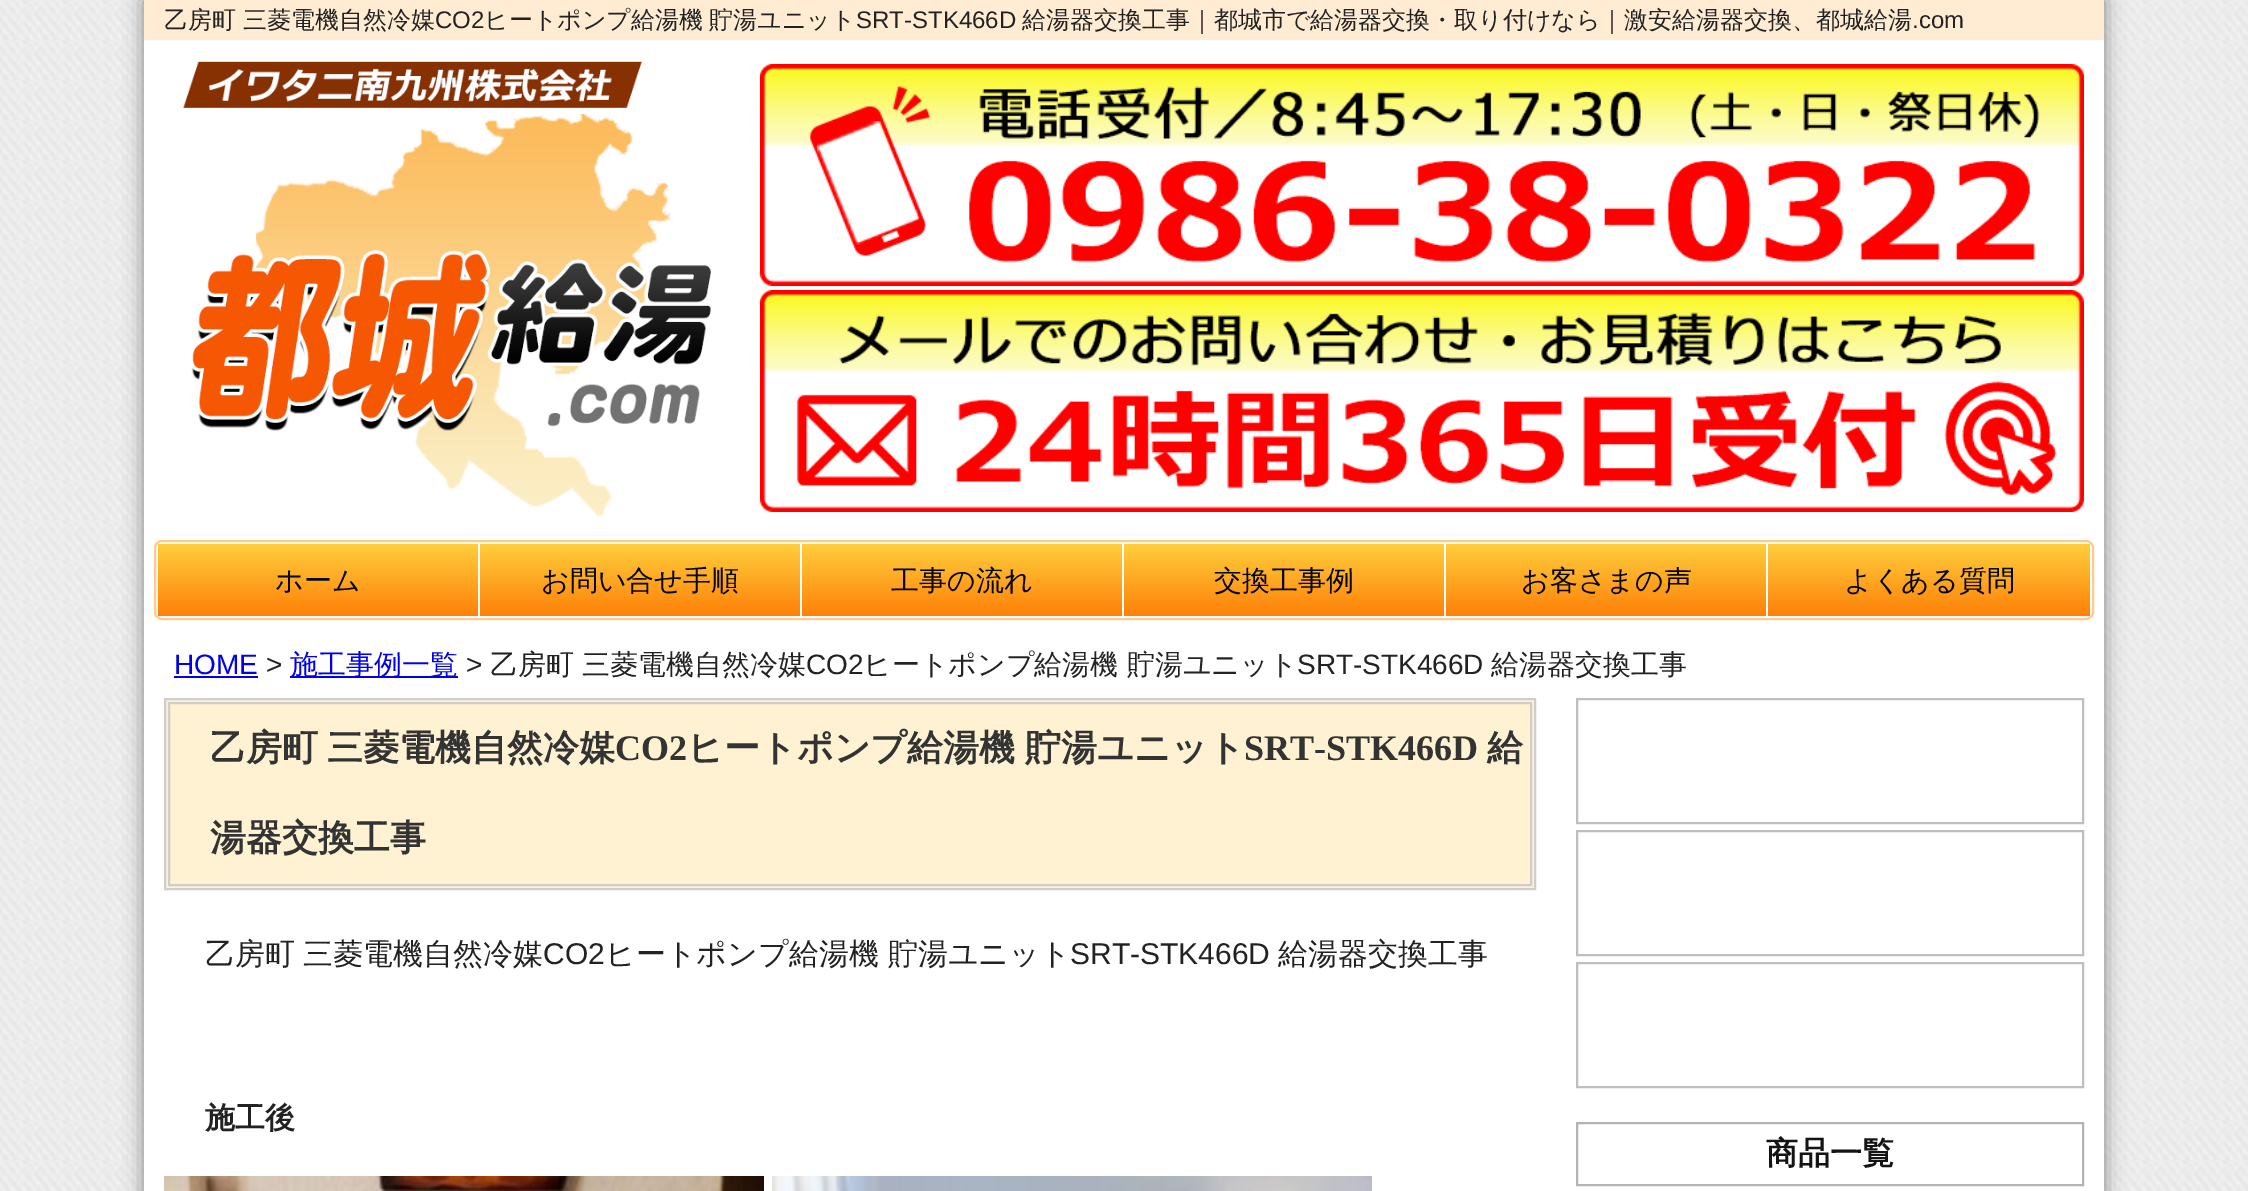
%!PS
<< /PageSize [2248 1191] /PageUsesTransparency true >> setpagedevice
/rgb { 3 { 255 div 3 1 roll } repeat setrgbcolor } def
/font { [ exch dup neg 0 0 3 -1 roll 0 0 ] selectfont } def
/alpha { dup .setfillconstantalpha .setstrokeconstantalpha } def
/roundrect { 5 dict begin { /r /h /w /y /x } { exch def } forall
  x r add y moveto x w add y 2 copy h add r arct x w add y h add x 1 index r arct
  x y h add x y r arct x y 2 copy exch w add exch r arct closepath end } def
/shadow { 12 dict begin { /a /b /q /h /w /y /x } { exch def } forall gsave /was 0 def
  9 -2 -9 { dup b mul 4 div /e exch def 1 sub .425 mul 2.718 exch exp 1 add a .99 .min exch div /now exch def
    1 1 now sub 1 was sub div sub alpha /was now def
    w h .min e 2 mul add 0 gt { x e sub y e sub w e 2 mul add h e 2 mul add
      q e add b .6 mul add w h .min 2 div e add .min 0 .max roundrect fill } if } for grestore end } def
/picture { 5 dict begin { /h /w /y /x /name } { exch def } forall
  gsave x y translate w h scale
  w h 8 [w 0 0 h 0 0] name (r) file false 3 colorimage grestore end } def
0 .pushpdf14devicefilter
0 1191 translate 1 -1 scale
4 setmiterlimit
255 255 255 rgb
0 0 2248 1191 rectfill
(img/1.rgb) 0 0 2248 1191 picture
129 129 129 rgb
144 0 1960 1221 0 10 1 shadow
255 255 255 rgb
144 40 1960 1151 rectfill
255 236 210 rgb
144 0 1960 40 rectfill
(img/2.rgb) 183 61 528 456 picture
(img/3.rgb) 760 64 1324 222 picture
(img/4.rgb) 760 290 1324 222 picture
255 201 143 rgb
2 setlinewidth
155 541 1938 78 7 roundrect stroke
gsave 158 544 moveto 478 544 lineto 478 616 lineto 158 616 lineto closepath clip newpath
<< /ShadingType 2 /ColorSpace /DeviceRGB /Coords [318 544 318 616] /Extend [true true] /Function << /FunctionType 2 /Domain [0 1] /C0 [1 0.812 0.239] /C1 [0.996 0.502 0.031] /N 1 >> >> shfill grestore
gsave 480 544 moveto 800 544 lineto 800 616 lineto 480 616 lineto closepath clip newpath
<< /ShadingType 2 /ColorSpace /DeviceRGB /Coords [640 544 640 616] /Extend [true true] /Function << /FunctionType 2 /Domain [0 1] /C0 [1 0.812 0.239] /C1 [0.996 0.502 0.031] /N 1 >> >> shfill grestore
gsave 802 544 moveto 1122 544 lineto 1122 616 lineto 802 616 lineto closepath clip newpath
<< /ShadingType 2 /ColorSpace /DeviceRGB /Coords [962 544 962 616] /Extend [true true] /Function << /FunctionType 2 /Domain [0 1] /C0 [1 0.812 0.239] /C1 [0.996 0.502 0.031] /N 1 >> >> shfill grestore
gsave 1124 544 moveto 1444 544 lineto 1444 616 lineto 1124 616 lineto closepath clip newpath
<< /ShadingType 2 /ColorSpace /DeviceRGB /Coords [1284 544 1284 616] /Extend [true true] /Function << /FunctionType 2 /Domain [0 1] /C0 [1 0.812 0.239] /C1 [0.996 0.502 0.031] /N 1 >> >> shfill grestore
gsave 1446 544 moveto 1766 544 lineto 1766 616 lineto 1446 616 lineto closepath clip newpath
<< /ShadingType 2 /ColorSpace /DeviceRGB /Coords [1606 544 1606 616] /Extend [true true] /Function << /FunctionType 2 /Domain [0 1] /C0 [1 0.812 0.239] /C1 [0.996 0.502 0.031] /N 1 >> >> shfill grestore
gsave 1768 544 moveto 2090 544 lineto 2090 616 lineto 1768 616 lineto closepath clip newpath
<< /ShadingType 2 /ColorSpace /DeviceRGB /Coords [1929 544 1929 616] /Extend [true true] /Function << /FunctionType 2 /Domain [0 1] /C0 [1 0.812 0.239] /C1 [0.996 0.502 0.031] /N 1 >> >> shfill grestore
0 0 238 rgb
174 676 84 2 rectfill
290 676 168 2 rectfill
255 242 210 rgb
165 699 moveto 1535 699 lineto 1535 889 lineto 165 889 lineto closepath gsave fill grestore
207 206 205 rgb
stroke
169 703 1362 182 rectstroke
(img/5.rgb) 164 1176 600 15 picture
(img/6.rgb) 772 1176 600 15 picture
190 190 190 rgb
1577 699 506 124 rectstroke
1577 831 506 124 rectstroke
1577 963 506 124 rectstroke
179 179 179 rgb
1577 1123 506 62 rectstroke
/WenQuanYiZenHei-Medium 24 font
34 34 34 rgb
164 28 moveto (乙房町) show
243 28 moveto (三菱電機自然冷媒) show
/LiberationSans-Regular 24 font
435 28 moveto (CO2) show
/WenQuanYiZenHei-Medium 24 font
484 28 moveto -1 0 32 (ヒートポンプ給湯機 貯湯ユニット) widthshow
/LiberationSans-Regular 24 font
856 28 moveto (SRT-STK466D) show
/WenQuanYiZenHei-Medium 24 font
1022 28 moveto (給湯器交換工事｜都城市で給湯器交換・取り付けなら｜激安給湯器交換、都城給湯) show
/LiberationSans-Regular 24 font
1912 28 moveto (.com) show
/WenQuanYiZenHei-Medium 28 font
5 5 5 rgb
[
  [(ホーム) 275 590]
  [(お問い合せ手順) 541 590]
  [(工事の流れ) 891 590]
  [(交換工事例) 1214 590]
  [(お客さまの声) 1521 590]
  [(よくある質問) 1844 590]
] { aload pop moveto show } forall
/LiberationSans-Regular 28 font
0 0 238 rgb
174 674 moveto (HOME) show
34 34 34 rgb
266 674 moveto (>) show
/WenQuanYiZenHei-Medium 28 font
0 0 238 rgb
290 674 moveto (施工事例一覧) show
/LiberationSans-Regular 28 font
34 34 34 rgb
466 674 moveto (>) show
/WenQuanYiZenHei-Medium 28 font
490 674 moveto (乙房町) show
582 674 moveto (三菱電機自然冷媒) show
/LiberationSans-Regular 28 font
806 674 moveto (CO2) show
/WenQuanYiZenHei-Medium 28 font
863 674 moveto (ヒートポンプ給湯機 貯湯ユニット) show
/LiberationSans-Regular 28 font
1297 674 moveto (SRT-STK466D) show
/WenQuanYiZenHei-Medium 28 font
1491 674 moveto (給湯器交換工事) show
/WenQuanYiZenHei-Bold 36 font
51 51 51 rgb
210 760 moveto (乙房町) show
327 760 moveto (三菱電機自然冷媒) show
/LiberationSerif-Bold 36 font
615 760 moveto (CO2) show
/WenQuanYiZenHei-Bold 36 font
687 760 moveto -1 0 32 (ヒートポンプ給湯機 貯湯ユニット) widthshow
/LiberationSerif-Bold 36 font
1244 760 moveto (SRT-STK466D) show
/WenQuanYiZenHei-Bold 36 font
1487 760 moveto (給) show
210 850 moveto (湯器交換工事) show
/WenQuanYiZenHei-Medium 30 font
34 34 34 rgb
205 964 moveto (乙房町) show
303 964 moveto (三菱電機自然冷媒) show
/LiberationSans-Regular 30 font
543 964 moveto (CO2) show
/WenQuanYiZenHei-Medium 30 font
605 964 moveto (ヒートポンプ給湯機 貯湯ユニット) show
/LiberationSans-Regular 30 font
1070 964 moveto (SRT-STK466D) show
/WenQuanYiZenHei-Medium 30 font
1278 964 moveto (給湯器交換工事) show
/WenQuanYiZenHei-Bold 30 font
205 1128 moveto (施工後) show
/WenQuanYiZenHei-Bold 32 font
20 20 20 rgb
1766 1164 moveto (商品一覧) show
.poppdf14devicefilter showpage
